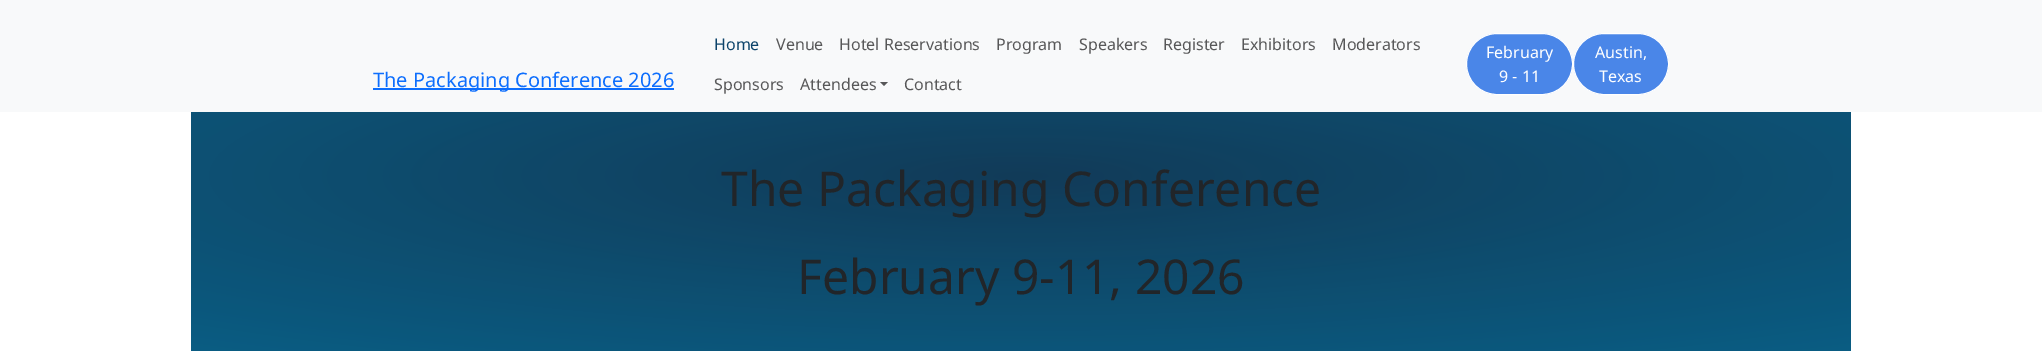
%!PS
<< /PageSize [2042 351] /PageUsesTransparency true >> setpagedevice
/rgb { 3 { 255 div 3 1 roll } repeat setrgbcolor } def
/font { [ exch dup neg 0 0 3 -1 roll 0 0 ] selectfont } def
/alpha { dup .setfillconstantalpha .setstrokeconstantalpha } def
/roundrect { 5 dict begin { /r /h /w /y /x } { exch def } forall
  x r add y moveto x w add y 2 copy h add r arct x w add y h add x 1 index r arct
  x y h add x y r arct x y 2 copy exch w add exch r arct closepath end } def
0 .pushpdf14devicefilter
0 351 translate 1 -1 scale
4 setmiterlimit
255 255 255 rgb
0 0 2042 351 rectfill
248 249 250 rgb
0 0 2042 112 rectfill
13 110 253 rgb
373 88 301 2 rectfill
87 87 88 rgb
880 82 moveto 888 82 lineto 884 86 lineto closepath fill
74 134 232 rgb
1466.5 33.5 106 61 30.5 roundrect gsave fill grestore
255 255 255 rgb
stroke
74 134 232 rgb
1573.5 33.5 95 61 30.5 roundrect gsave fill grestore
255 255 255 rgb
stroke
33 37 41 rgb
191 112 1660 239 rectfill
0.73 alpha
gsave 191 112 moveto 1851 112 lineto 1851 351 lineto 191 351 lineto closepath clip newpath 1021 176 translate 1444 248 scale
<< /ShadingType 3 /ColorSpace /DeviceRGB /Coords [0 0 0 0 0 1] /Extend [true true] /Function << /FunctionType 2 /Domain [0 1] /C0 [0.047 0.263 0.416] /C1 [0 0.463 0.667] /N 1 >> >> shfill grestore
/NotoSans-Regular 20 font
1 alpha
13 110 253 rgb
373 87 moveto (The Packaging Conference 2026) show
/NotoSans-Regular 16 font
12 67 106 rgb
714 50 moveto (Home) show
87 87 88 rgb
[
  [(Venue) 776 50]
  [(Hotel Reservations) 839 50]
  [(Program) 996 50]
  [(Speakers) 1079 50]
  [(Register) 1163 50]
  [(Exhibitors) 1241 50]
  [(Moderators) 1332 50]
  [(Sponsors) 714 90]
  [(Attendees) 800 90]
  [(Contact) 904 90]
] { aload pop moveto show } forall
255 255 255 rgb
[
  [(February) 1486 58]
  [(9 - 11) 1499 82]
  [(Austin,) 1595 58]
  [(Texas) 1599 82]
] { aload pop moveto show } forall
/NotoSans-Regular 48 font
33 37 41 rgb
721 206 moveto (The Packaging Conference) show
797 294 moveto (February 9-11, 2026) show
.poppdf14devicefilter showpage
